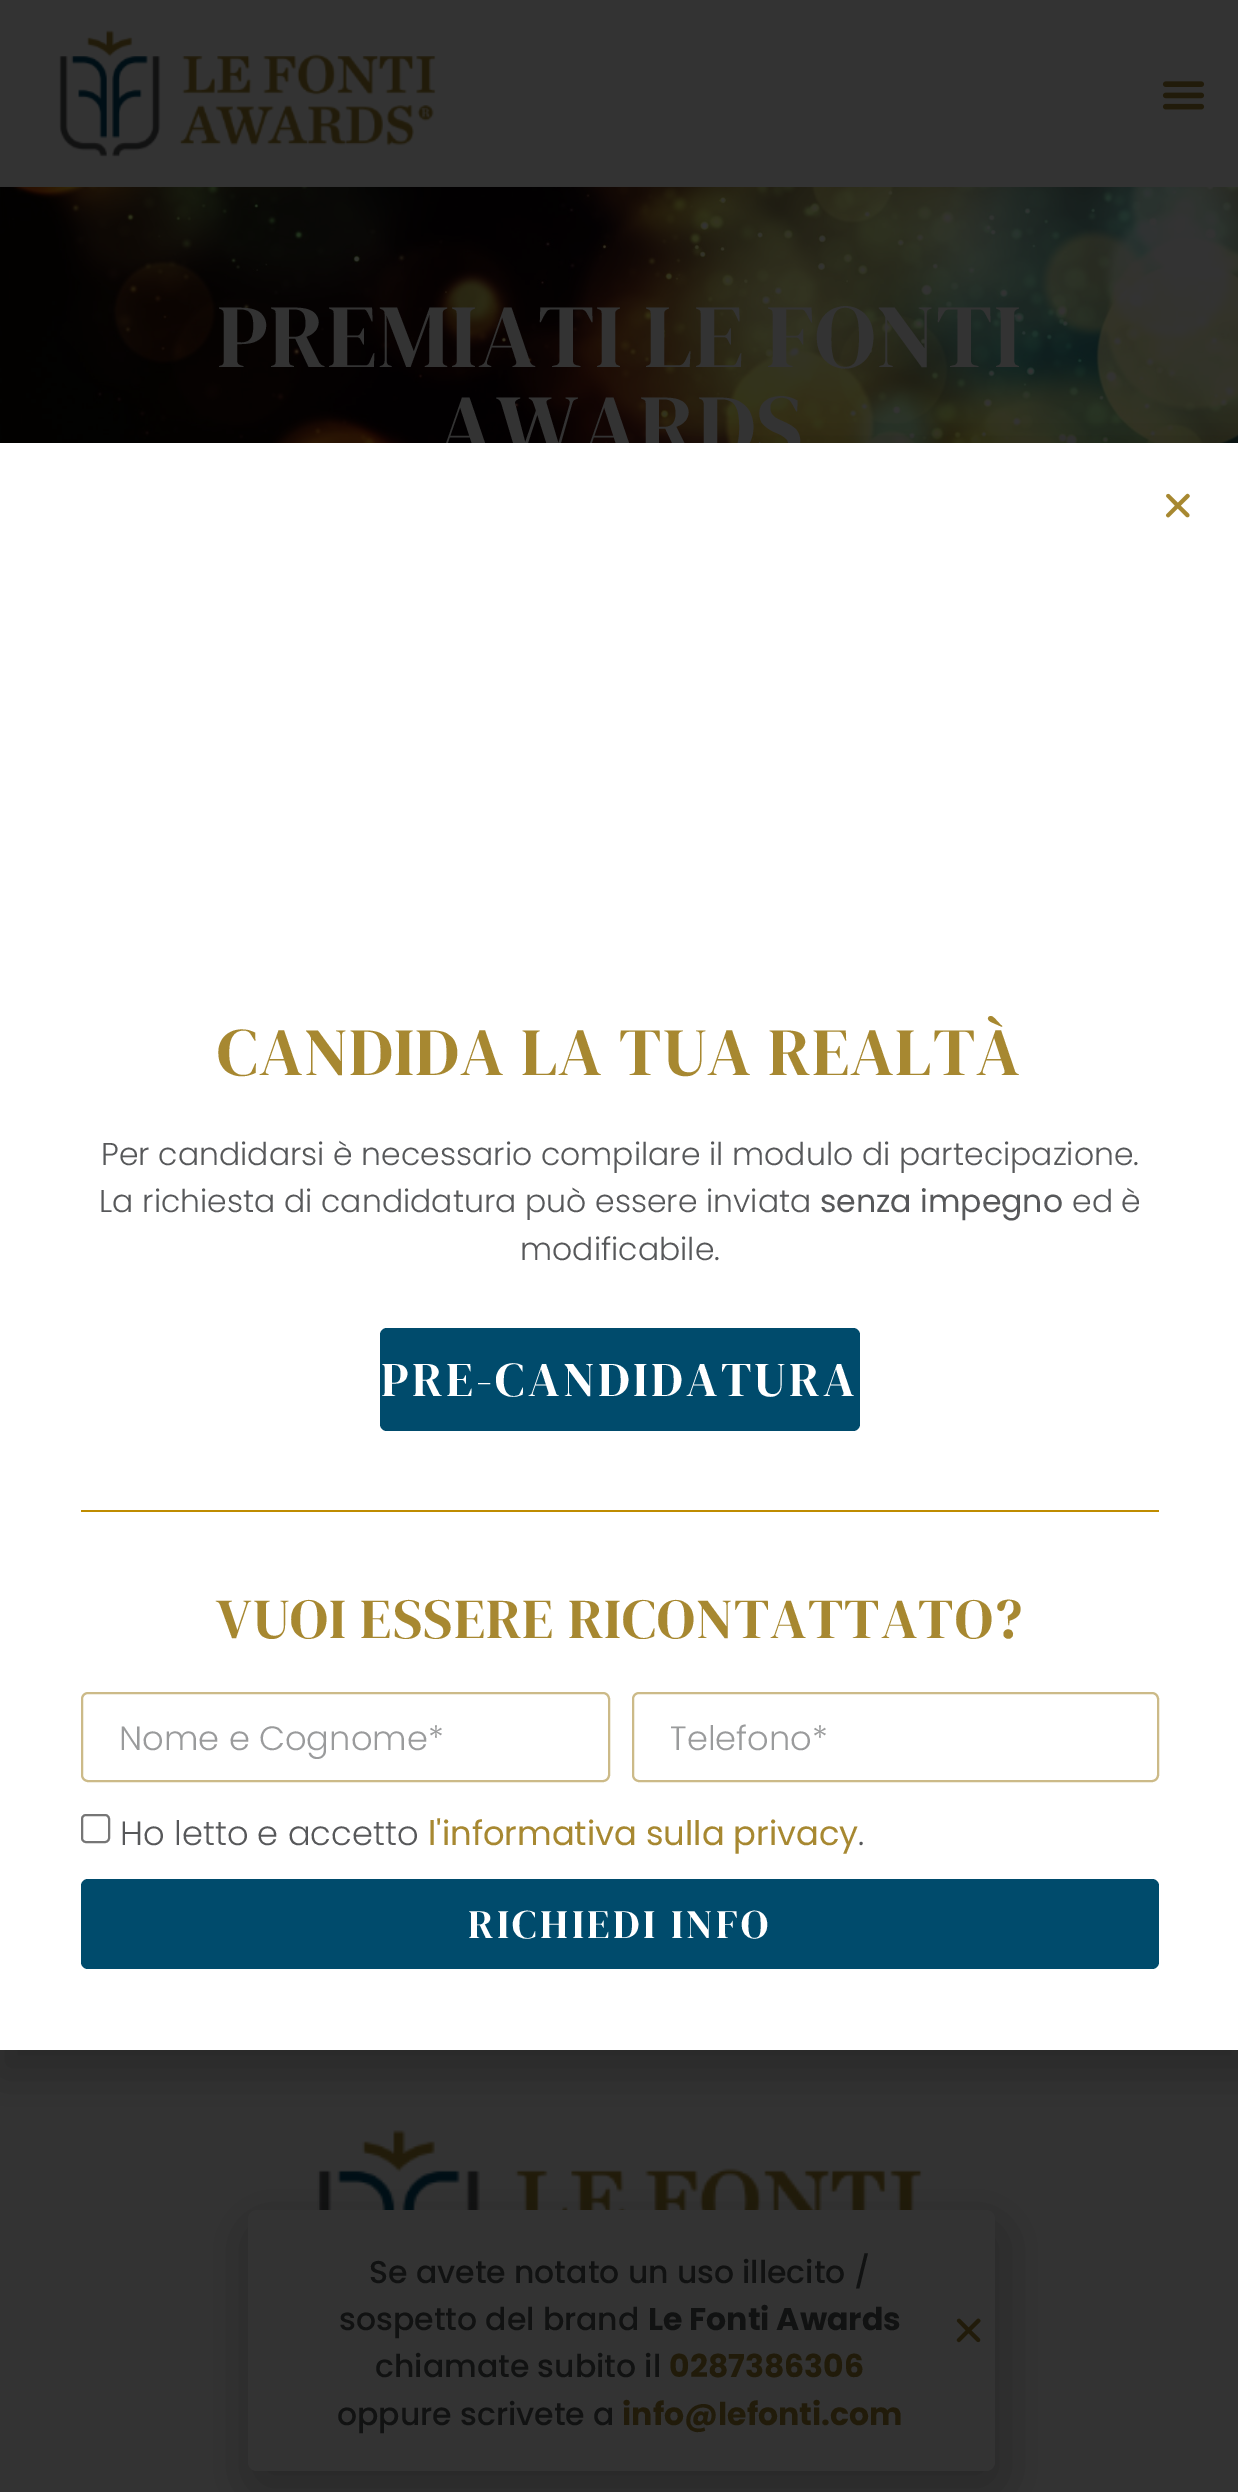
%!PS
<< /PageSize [1238 2492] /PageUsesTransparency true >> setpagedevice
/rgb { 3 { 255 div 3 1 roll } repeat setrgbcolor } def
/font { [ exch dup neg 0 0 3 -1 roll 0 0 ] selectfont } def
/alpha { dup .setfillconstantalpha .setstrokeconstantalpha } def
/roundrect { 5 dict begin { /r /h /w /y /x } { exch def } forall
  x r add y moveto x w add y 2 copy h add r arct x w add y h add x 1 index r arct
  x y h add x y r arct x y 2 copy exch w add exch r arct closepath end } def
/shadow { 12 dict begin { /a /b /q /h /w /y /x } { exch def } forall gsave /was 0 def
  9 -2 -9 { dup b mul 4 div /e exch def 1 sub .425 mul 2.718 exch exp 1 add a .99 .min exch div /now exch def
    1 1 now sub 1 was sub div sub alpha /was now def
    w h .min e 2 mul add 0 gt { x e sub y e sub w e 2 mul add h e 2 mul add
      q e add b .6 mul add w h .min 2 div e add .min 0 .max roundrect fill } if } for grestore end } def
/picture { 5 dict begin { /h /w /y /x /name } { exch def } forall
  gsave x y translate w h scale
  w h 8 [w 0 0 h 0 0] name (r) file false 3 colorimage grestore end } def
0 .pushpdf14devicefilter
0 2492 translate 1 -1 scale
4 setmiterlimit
51 51 51 rgb
0 0 1238 2492 rectfill
(img/3.rgb) 0 186 1238 257 picture
0.95 alpha
0 186 1238 1 rectfill
1 alpha
(img/1.rgb) 59 30 377 127 picture
(img/2.rgb) 1162 81 43 29 picture
(img/5.rgb) 317 2130 606 80 picture
0 0 0 rgb
-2 455 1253 1620 0 26 0.2 shadow
245 2221 761 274 16 26 0.2 shadow
51 51 51 rgb
248 2210 747 261 9 roundrect fill
(img/6.rgb) 956 2318 25 25 picture
/DMSerifDisplay-Regular 90 font
217 367 moveto 1.1 0 (PREMIATI LE FONTI) ashow
436 457 moveto 1.1 0 (AWARDS) ashow
255 255 255 rgb
0 443 1238 1607 rectfill
(img/4.rgb) 1165 493 25 25 picture
/DMSerifDisplay-Regular 67.5 font
167 136 49 rgb
217 1075 moveto 1.1 0 (CANDIDA LA TUA REALTÀ) ashow
/Poppins-Light 31.5 font
87 88 90 rgb
101 1165 moveto (Per candidarsi è necessario compilare il modulo di partecipazione.) show
99 1212 moveto (La richiesta di candidatura può essere inviata) show
/Poppins-Regular 31.5 font
820 1212 moveto (senza impegno) show
/Poppins-Light 31.5 font
1072 1212 moveto (ed è) show
520 1260 moveto (modificabile.) show
0 75 108 rgb
380 1328 480 103 7 roundrect fill
/DMSerifDisplay-Regular 48.5 font
255 255 255 rgb
381 1396 moveto 3.4 0 (PRE-CANDIDATURA) ashow
191 140 0 rgb
81 1510 1078 2 rectfill
/DMSerifDisplay-Regular 56.25 font
167 136 49 rgb
216 1638 moveto 1.1 0 (VUOI ESSERE RICONTATTATO?) ashow
204 186 136 rgb
2 setlinewidth
82 1693 527 88 6 roundrect stroke
/Poppins-Light 33.75 font
154 155 156 rgb
119 1750 moveto (Nome e Cognome*) show
204 186 136 rgb
633 1693 525 88 6 roundrect stroke
gsave
671 1712 450 52 rectclip
154 155 156 rgb
669 1750 moveto (Telefono*) show
grestore
118 118 118 rgb
82 1815 27 27 4 roundrect stroke
87 88 90 rgb
120 1845 moveto (Ho letto e accetto) show
/Poppins-Regular 33.75 font
167 136 49 rgb
428 1845 moveto (l'informativa sulla privacy) show
/Poppins-Light 33.75 font
87 88 90 rgb
858 1845 moveto (.) show
0 75 108 rgb
81 1879 1078 90 7 roundrect fill
/DMSerifDisplay-Regular 40.5 font
255 255 255 rgb
468 1938 moveto 3.4 0 (RICHIEDI INFO) ashow
/Poppins-Medium 31.5 font
17 18 18 rgb
369 2283 moveto (Se avete notato un uso illecito /) show
339 2330 moveto (sospetto del brand) show
/Poppins-Bold 31.5 font
648 2330 moveto (Le Fonti Awards) show
/Poppins-Medium 31.5 font
375 2377 moveto (chiamate subito il) show
/Poppins-Bold 31.5 font
33 27 10 rgb
669 2377 moveto (0287386306) show
/Poppins-Medium 31.5 font
17 18 18 rgb
337 2425 moveto (oppure scrivete a) show
/Poppins-Bold 31.5 font
33 27 10 rgb
622 2425 moveto (info@lefonti.com) show
.poppdf14devicefilter showpage
